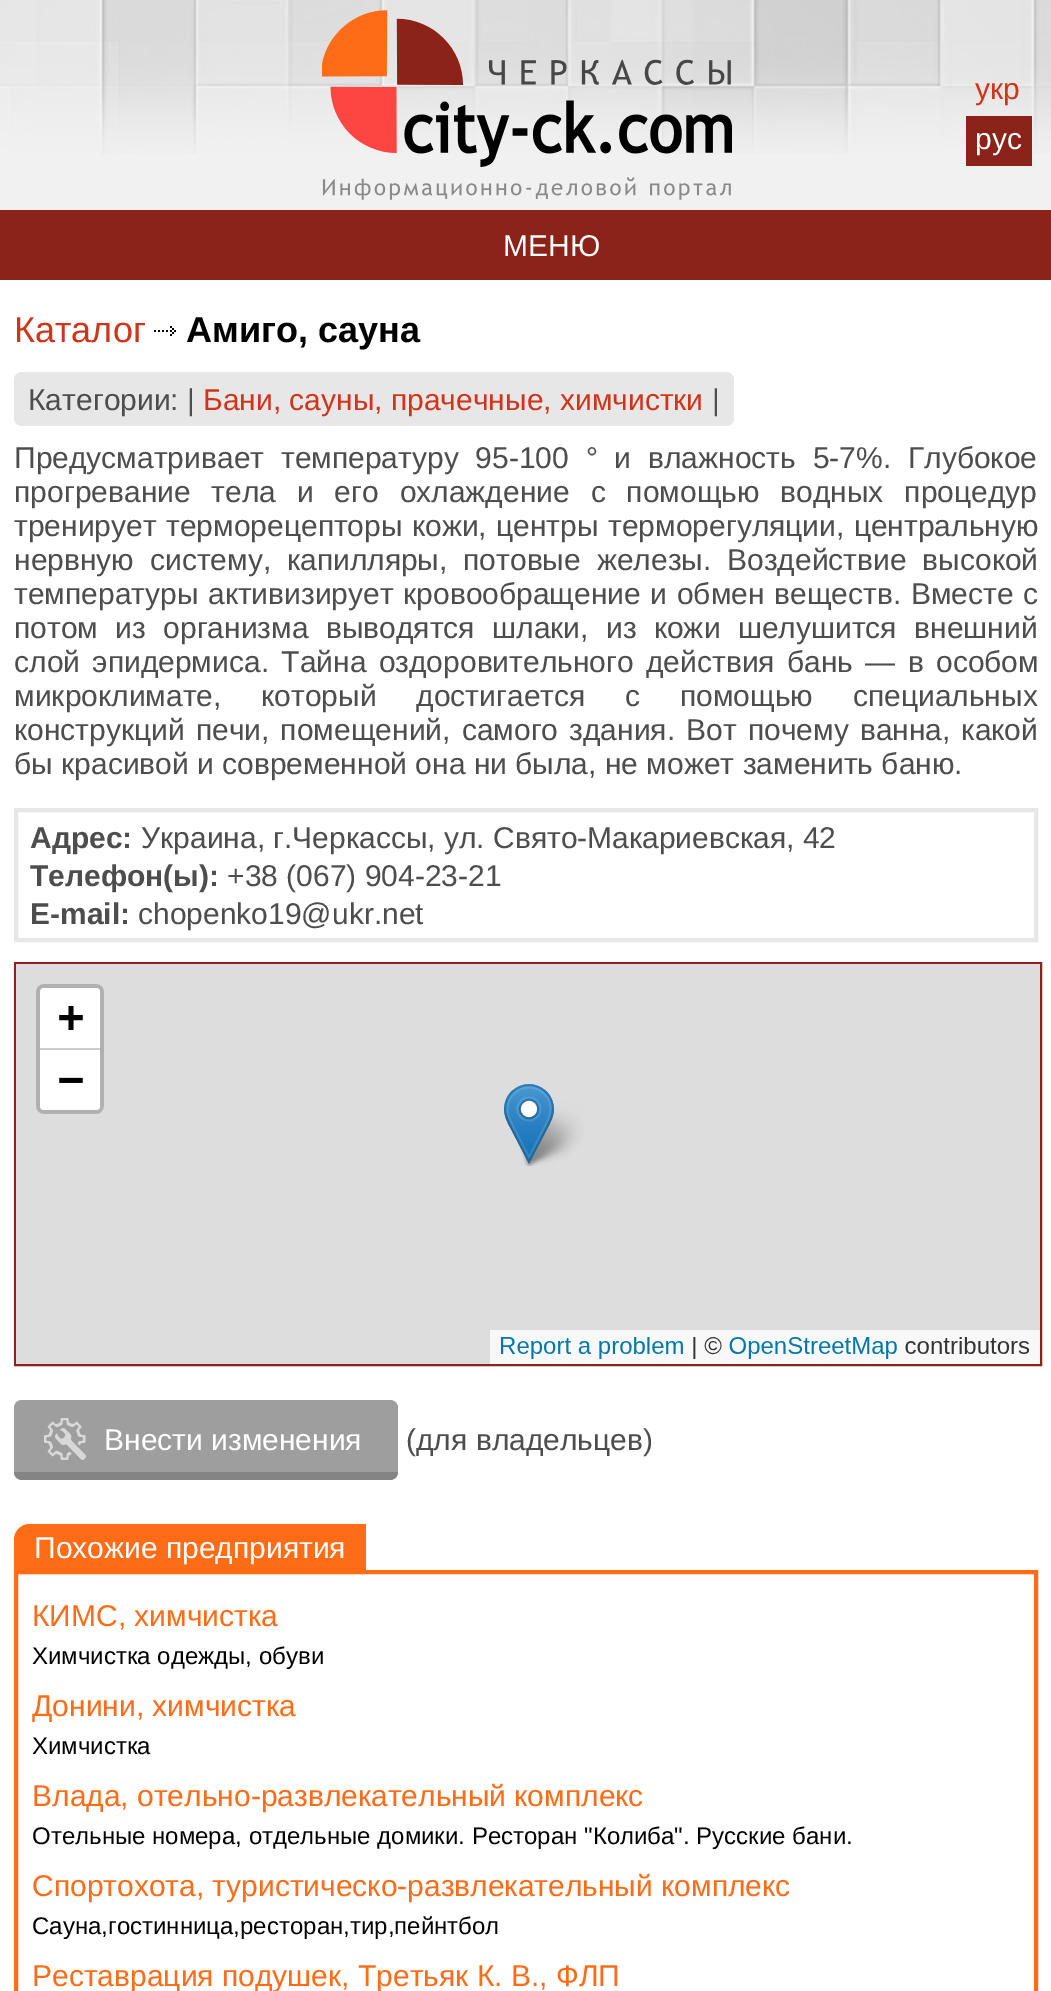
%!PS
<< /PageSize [1051 1991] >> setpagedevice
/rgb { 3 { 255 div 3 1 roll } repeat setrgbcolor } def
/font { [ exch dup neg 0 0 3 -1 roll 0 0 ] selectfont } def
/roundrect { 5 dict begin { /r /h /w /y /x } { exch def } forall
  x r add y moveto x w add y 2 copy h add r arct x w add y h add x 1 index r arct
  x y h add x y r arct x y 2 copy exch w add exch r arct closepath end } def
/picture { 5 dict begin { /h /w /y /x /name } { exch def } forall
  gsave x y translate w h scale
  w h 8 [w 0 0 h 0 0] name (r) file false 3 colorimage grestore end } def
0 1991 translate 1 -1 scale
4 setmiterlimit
255 255 255 rgb
0 0 1051 1991 rectfill
241 241 241 rgb
0 154 1051 56 rectfill
(img/1.rgb) 0 0 1051 154 picture
(img/2.rgb) 322 10 410 190 picture
139 35 24 rgb
966 116 66 50 rectfill
0 210 1051 70 rectfill
(img/3.rgb) 154 326 22 10 picture
231 231 231 rgb
14 372 720 54 8 roundrect fill
4 setlinewidth
16 810 1020 130 rectstroke
139 35 24 rgb
2 setlinewidth
15 963 1026 402 rectstroke
(img/4.rgb) 16 964 1024 400 picture
158 158 158 rgb
22 1400 moveto 390 1400 lineto 394.5 1400 398 1403.5 398 1408 curveto 398 1472 lineto 14 1472 lineto 14 1408 lineto 14 1403.5 17.5 1400 22 1400 curveto closepath fill
132 132 132 rgb
14 1472 moveto 398 1472 lineto 398 1476.5 394.5 1480 390 1480 curveto 22 1480 lineto 17.5 1480 14 1476.5 14 1472 curveto closepath fill
(img/5.rgb) 44 1418 42 42 picture
254 108 23 rgb
4 setlinewidth
16 1572 1020 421 rectstroke
30 1524 moveto 366 1524 lineto 366 1570 lineto 14 1570 lineto 14 1540 lineto 14 1531 21 1524 30 1524 curveto closepath fill
/LiberationSans-Regular 30 font
208 52 27 rgb
975 99 moveto (укр) show
255 255 255 rgb
975 149 moveto (рус) show
503 256 moveto (МЕНЮ) show
/LiberationSans-Regular 36 font
208 52 27 rgb
14 342 moveto (Каталог) show
/LiberationSans-Bold 36 font
0 0 0 rgb
186 342 moveto (Амиго, сауна) show
/LiberationSans-Regular 30 font
77 77 77 rgb
28 410 moveto (Категории: |) show
208 52 27 rgb
203 410 moveto (Бани, сауны, прачечные, химчистки) show
77 77 77 rgb
712 410 moveto (|) show
14 468 moveto 8.5 0 32 (Предусматривает температуру 95-100 ° и влажность 5-7%. Глубокое) widthshow
14 502 moveto 12.5 0 32 (прогревание тела и его охлаждение с помощью водных процедур) widthshow
14 536 moveto 1 0 32 (тренирует терморецепторы кожи, центры терморегуляции, центральную) widthshow
14 570 moveto 7.5 0 32 (нервную систему, капилляры, потовые железы. Воздействие высокой) widthshow
14 604 moveto 1.25 0 32 (температуры активизирует кровообращение и обмен веществ. Вместе с) widthshow
14 638 moveto 9 0 32 (потом из организма выводятся шлаки, из кожи шелушится внешний) widthshow
14 672 moveto 4 0 32 (слой эпидермиса. Тайна оздоровительного действия бань — в особом) widthshow
14 706 moveto 31.5 0 32 (микроклимате, который достигается с помощью специальных) widthshow
14 740 moveto 2.75 0 32 (конструкций печи, помещений, самого здания. Вот почему ванна, какой) widthshow
14 774 moveto (бы красивой и современной она ни была, не может заменить баню.) show
/LiberationSans-Bold 30 font
30 848 moveto (Адрес:) show
/LiberationSans-Regular 30 font
141 848 moveto (Украина, г.Черкассы, ул. Свято-Макариевская, 42) show
/LiberationSans-Bold 30 font
30 886 moveto (Телефон\(ы\):) show
/LiberationSans-Regular 30 font
227 886 moveto (+38 \(067\) 904-23-21) show
/LiberationSans-Bold 30 font
30 924 moveto (E-mail:) show
/LiberationSans-Regular 30 font
138 924 moveto (chopenko19@ukr.net) show
255 255 255 rgb
104 1450 moveto (Внести изменения) show
77 77 77 rgb
406 1450 moveto (\(для владельцев\)) show
255 255 255 rgb
34 1558 moveto (Похожие предприятия) show
254 108 23 rgb
32 1626 moveto (КИМС, химчистка) show
/LiberationSans-Regular 24 font
0 0 0 rgb
32 1664 moveto (Химчистка одежды, обуви) show
/LiberationSans-Regular 30 font
254 108 23 rgb
32 1716 moveto (Донини, химчистка) show
/LiberationSans-Regular 24 font
0 0 0 rgb
32 1754 moveto (Химчистка) show
/LiberationSans-Regular 30 font
254 108 23 rgb
32 1806 moveto (Влада, отельно-развлекательный комплекс) show
/LiberationSans-Regular 24 font
0 0 0 rgb
32 1844 moveto (Отельные номера, отдельные домики. Ресторан "Колиба". Русские бани.) show
/LiberationSans-Regular 30 font
254 108 23 rgb
32 1896 moveto (Спортохота, туристическо-развлекательный комплекс) show
/LiberationSans-Regular 24 font
0 0 0 rgb
32 1934 moveto (Сауна,гостинница,ресторан,тир,пейнтбол) show
/LiberationSans-Regular 30 font
254 108 23 rgb
32 1986 moveto (Реставрация подушек, Третьяк К. В., ФЛП) show
showpage
